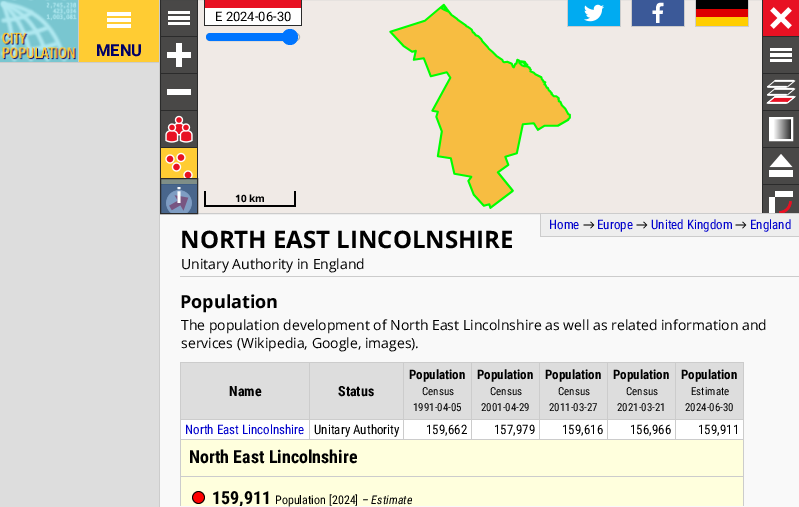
%!PS
<< /PageSize [799 507] /PageUsesTransparency true >> setpagedevice
/rgb { 3 { 255 div 3 1 roll } repeat setrgbcolor } def
/font { [ exch dup neg 0 0 3 -1 roll 0 0 ] selectfont } def
/alpha { dup .setfillconstantalpha .setstrokeconstantalpha } def
/circle { newpath 0 360 arc closepath } def
/roundrect { 5 dict begin { /r /h /w /y /x } { exch def } forall
  x r add y moveto x w add y 2 copy h add r arct x w add y h add x 1 index r arct
  x y h add x y r arct x y 2 copy exch w add exch r arct closepath end } def
/picture { 5 dict begin { /h /w /y /x /name } { exch def } forall
  gsave x y translate w h scale
  w h 8 [w 0 0 h 0 0] name (r) file false 3 colorimage grestore end } def
0 .pushpdf14devicefilter
0 507 translate 1 -1 scale
4 setmiterlimit
249 249 249 rgb
0 0 799 507 rectfill
[
  [0 63 159 444 221 221 221]
  [159 0 1 507 204 204 204]
  [161 0 601 213 240 234 230]
] { aload pop rgb rectfill } forall
204 204 204 rgb
160.5 -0.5 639 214 rectstroke
0.4 alpha
[
  [161 0 36 213 43 43 43]
] { aload pop rgb rectfill } forall
0.75 alpha
[
  [161 0 36 36 43 43 43]
] { aload pop rgb rectfill } forall
1 alpha
[
  [160 36 38 1 43 43 43]
  [160 0 1 36 43 43 43]
] { aload pop rgb rectfill } forall
(img/1.rgb) 168 11 22 14 picture
[
  [197 0 1 36 43 43 43]
] { aload pop rgb rectfill } forall
0.75 alpha
[
  [161 37 36 36 43 43 43]
] { aload pop rgb rectfill } forall
1 alpha
[
  [160 73 38 1 43 43 43]
  [160 37 1 36 43 43 43]
  [167 52 24 6 255 255 255]
  [176 43 6 24 255 255 255]
  [197 37 1 36 43 43 43]
] { aload pop rgb rectfill } forall
0.75 alpha
[
  [161 74 36 36 43 43 43]
] { aload pop rgb rectfill } forall
1 alpha
[
  [160 110 38 1 43 43 43]
  [160 74 1 36 43 43 43]
  [167 89 24 6 255 255 255]
  [197 74 1 36 43 43 43]
] { aload pop rgb rectfill } forall
0.75 alpha
[
  [161 111 36 36 43 43 43]
] { aload pop rgb rectfill } forall
1 alpha
[
  [160 147 38 1 43 43 43]
  [160 111 1 36 43 43 43]
] { aload pop rgb rectfill } forall
(img/2.rgb) 165 115 28 28 picture
[
  [197 111 1 36 43 43 43]
  [161 148 36 36 255 204 51]
  [160 184 38 1 43 43 43]
  [160 148 1 36 43 43 43]
] { aload pop rgb rectfill } forall
(img/3.rgb) 165 152 28 28 picture
197 148 1 36 rectfill
0.75 alpha
161 185 36 28 rectfill
1 alpha
(img/4.rgb) 166 190 26 23 picture
[
  [205 0 96 8 232 17 35]
  [301 0 1 26 43 43 43]
  [204 25 98 1 43 43 43]
  [204 0 1 26 43 43 43]
  [205 8 96 17 255 255 255]
] { aload pop rgb rectfill } forall
239 239 239 rgb
206.5 33.5 93 7 3.5 roundrect gsave fill grestore
178 178 178 rgb
stroke
0 117 255 rgb
210 33 moveto 290 33 lineto 290 41 lineto 210 41 lineto 208 41 206 39 206 37 curveto 206 35 208 33 210 33 curveto closepath fill
290 37 8 circle fill
[
  [763 0 36 36 232 17 35]
  [762 36 37 1 43 43 43]
  [762 0 1 36 43 43 43]
] { aload pop rgb rectfill } forall
(img/5.rgb) 770 7 22 22 picture
[
  [763 37 36 36 73 72 71]
  [762 73 37 1 43 43 43]
  [762 37 1 36 43 43 43]
] { aload pop rgb rectfill } forall
(img/1.rgb) 770 48 22 14 picture
[
  [763 74 36 36 73 72 71]
  [762 110 37 1 43 43 43]
  [762 74 1 36 43 43 43]
] { aload pop rgb rectfill } forall
(img/6.rgb) 766 79 30 25 picture
[
  [763 111 36 36 73 72 71]
  [762 147 37 1 43 43 43]
  [762 111 1 36 43 43 43]
] { aload pop rgb rectfill } forall
gsave 771 119 moveto 791 119 lineto 791 139 lineto 771 139 lineto closepath clip newpath
<< /ShadingType 2 /ColorSpace /DeviceRGB /Coords [770 118 795 118] /Extend [true true] /Function << /FunctionType 3 /Domain [0 1] /Functions [<< /FunctionType 2 /Domain [0 1] /C0 [1 1 1] /C1 [1 1 1] /N 1 >> << /FunctionType 2 /Domain [0 1] /C0 [1 1 1] /C1 [0 0 0] /N 1 >>] /Bounds [0.14] /Encode [0 1 0 1] >> >> shfill grestore
255 255 255 rgb
2 setlinewidth
770 118 22 22 rectstroke
[
  [763 148 36 36 73 72 71]
  [762 184 37 1 43 43 43]
  [762 148 1 36 43 43 43]
] { aload pop rgb rectfill } forall
(img/7.rgb) 769 154 24 23 picture
73 72 71 rgb
763 185 36 28 rectfill
43 43 43 rgb
762 185 1 28 rectfill
(img/8.rgb) 769 191 24 22 picture
0.4 alpha
255 255 255 rgb
161 179 36 34 rectfill
0.5 alpha
0 60 136 rgb
160.5 178.5 moveto 197.5 178.5 lineto 197.5 213.5 lineto 160.5 213.5 lineto closepath fill
1 alpha
43 43 43 rgb
1 setlinewidth
160.5 178.5 moveto 197.5 178.5 lineto 197.5 213.5 lineto 160.5 213.5 lineto closepath stroke
[
  [294 191 2 16 0 0 0]
  [204 205 92 2 0 0 0]
  [204 191 2 16 0 0 0]
] { aload pop rgb rectfill } forall
(img/9.rgb) 389 3 182 206 picture
[
  [620 0 1 27 204 204 204]
  [567 26 54 1 204 204 204]
  [567 0 1 27 204 204 204]
] { aload pop rgb rectfill } forall
(img/10.rgb) 568 0 52 26 picture
[
  [684 0 1 27 204 204 204]
  [631 26 54 1 204 204 204]
  [631 0 1 27 204 204 204]
  [632 0 52 26 59 89 152]
] { aload pop rgb rectfill } forall
255 255 255 rgb
659.5 23 moveto 659.5 14 lineto 662.5 14 lineto 663 10.5 lineto 659.5 10.5 lineto 659.5 6.5 659.5 6 663.5 6 curveto 663.5 3 lineto 657 2 656 4.5 656 10.5 curveto 652.5 10.5 lineto 652.5 14 lineto 656 14 lineto 656 23 lineto closepath fill
[
  [748 0 1 27 204 204 204]
  [695 26 54 1 204 204 204]
  [695 0 1 27 204 204 204]
  [696 0 52 9 0 0 0]
  [696 9 52 8 221 0 0]
  [696 17 52 9 255 206 0]
] { aload pop rgb rectfill } forall
(img/11.rgb) 0 0 78 62 picture
[
  [78 0 1 63 204 204 204]
  [0 62 160 1 204 204 204]
  [79 0 80 62 255 204 51]
] { aload pop rgb rectfill } forall
(img/12.rgb) 107 12 24 16 picture
[
  [541 214 258 22 238 238 238]
  [540 236 259 1 204 204 204]
  [540 214 1 23 204 204 204]
  [180 276 619 1 204 204 204]
  [180 362 564 1 204 204 204]
  [743 362 1 144 204 204 204]
  [180 362 1 144 204 204 204]
  [181 363 128 56 221 221 221]
  [310 363 93 56 221 221 221]
  [675 419 69 1 204 204 204]
  [180 439 564 1 204 204 204]
  [675 419 1 21 204 204 204]
  [607 419 69 1 204 204 204]
  [607 419 1 21 204 204 204]
  [539 419 69 1 204 204 204]
  [539 419 1 21 204 204 204]
  [471 419 69 1 204 204 204]
  [471 419 1 21 204 204 204]
  [403 419 69 1 204 204 204]
  [403 419 1 21 204 204 204]
  [309 419 95 1 204 204 204]
  [309 419 1 21 204 204 204]
  [180 419 130 1 204 204 204]
  [309 362 1 58 204 204 204]
  [404 363 67 56 221 221 221]
  [403 362 1 58 204 204 204]
  [472 363 67 56 221 221 221]
  [471 362 1 58 204 204 204]
  [540 363 67 56 221 221 221]
  [539 362 1 58 204 204 204]
  [608 363 67 56 221 221 221]
  [607 362 1 58 204 204 204]
  [676 363 67 56 221 221 221]
  [675 362 1 58 204 204 204]
  [181 420 128 19 255 255 255]
  [310 420 93 19 255 255 255]
  [404 420 67 19 255 255 255]
  [472 420 67 19 255 255 255]
  [540 420 67 19 255 255 255]
  [608 420 67 19 255 255 255]
  [676 420 67 19 255 255 255]
  [181 440 562 66 255 255 221]
  [181 476 562 1 204 204 204]
] { aload pop rgb rectfill } forall
255 0 0 rgb
198.5 497.5 6 circle gsave fill grestore
0 0 0 rgb
0.8 setlinewidth
stroke
/Roboto-Regular 13 font
215 21 moveto (E 2024-06-30) show
/LiberationSans-Bold 22 font
255 255 255 rgb
176 203 moveto (i) show
/OpenSans-Bold 10 font
0 0 0 rgb
235 202 moveto (10 km) show
/Roboto-Bold 16.5 font
0 0 102 rgb
96 56 moveto (MENU) show
/RobotoCondensed-Regular 13 font
0 0 204 rgb
549 229 moveto (Home) show
/Carlito-Regular 13 font
0 0 0 rgb
583 229 moveto (→) show
/RobotoCondensed-Regular 13 font
0 0 204 rgb
597 229 moveto (Europe) show
/Carlito-Regular 13 font
0 0 0 rgb
636 229 moveto (→) show
/RobotoCondensed-Regular 13 font
0 0 204 rgb
651 229 moveto (United Kingdom) show
/Carlito-Regular 13 font
0 0 0 rgb
735 229 moveto (→) show
/RobotoCondensed-Regular 13 font
0 0 204 rgb
750 229 moveto (England) show
/OpenSans-Bold 24 font
0 0 0 rgb
180 248 moveto (NORTH EAST LINCOLNSHIRE) show
/OpenSans-Regular 14 font
181 269 moveto (Unitary Authority in England) show
/OpenSans-Bold 18 font
180 308 moveto (Population) show
/OpenSans-Regular 14 font
181 330 moveto (The population development of North East Lincolnshire as well as related information and) show
181 348 moveto (services \(Wikipedia, Google, images\).) show
/RobotoCondensed-Bold 14 font
229 396 moveto (Name) show
338 396 moveto (Status) show
/RobotoCondensed-Bold 13 font
409 379 moveto (Population) show
/RobotoCondensed-Regular 11 font
422 395 moveto (Census) show
413 411 moveto (1991-04-05) show
/RobotoCondensed-Bold 13 font
477 379 moveto (Population) show
/RobotoCondensed-Regular 11 font
490 395 moveto (Census) show
481 411 moveto (2001-04-29) show
/RobotoCondensed-Bold 13 font
545 379 moveto (Population) show
/RobotoCondensed-Regular 11 font
558 395 moveto (Census) show
549 411 moveto (2011-03-27) show
/RobotoCondensed-Bold 13 font
613 379 moveto (Population) show
/RobotoCondensed-Regular 11 font
626 395 moveto (Census) show
617 411 moveto (2021-03-21) show
/RobotoCondensed-Bold 13 font
681 379 moveto (Population) show
/RobotoCondensed-Regular 11 font
691 395 moveto (Estimate) show
685 411 moveto (2024-06-30) show
/RobotoCondensed-Regular 13 font
0 0 204 rgb
185 434 moveto (North East Lincolnshire) show
0 0 0 rgb
[
  [(Unitary Authority) 314 434]
  [(159,662) 426 434]
  [(157,979) 494 434]
  [(159,616) 562 434]
  [(156,966) 630 434]
  [(159,911) 698 434]
] { aload pop moveto show } forall
/RobotoCondensed-Bold 18 font
189 463 moveto (North East Lincolnshire) show
gsave
180 214 619 292 rectclip
212 504 moveto (159,911) show
grestore
/RobotoCondensed-Regular 12 font
275 504 moveto (Population [2024]) show
/RobotoCondensed-Italic 12 font
362 504 moveto (– Estimate) show
.poppdf14devicefilter showpage
